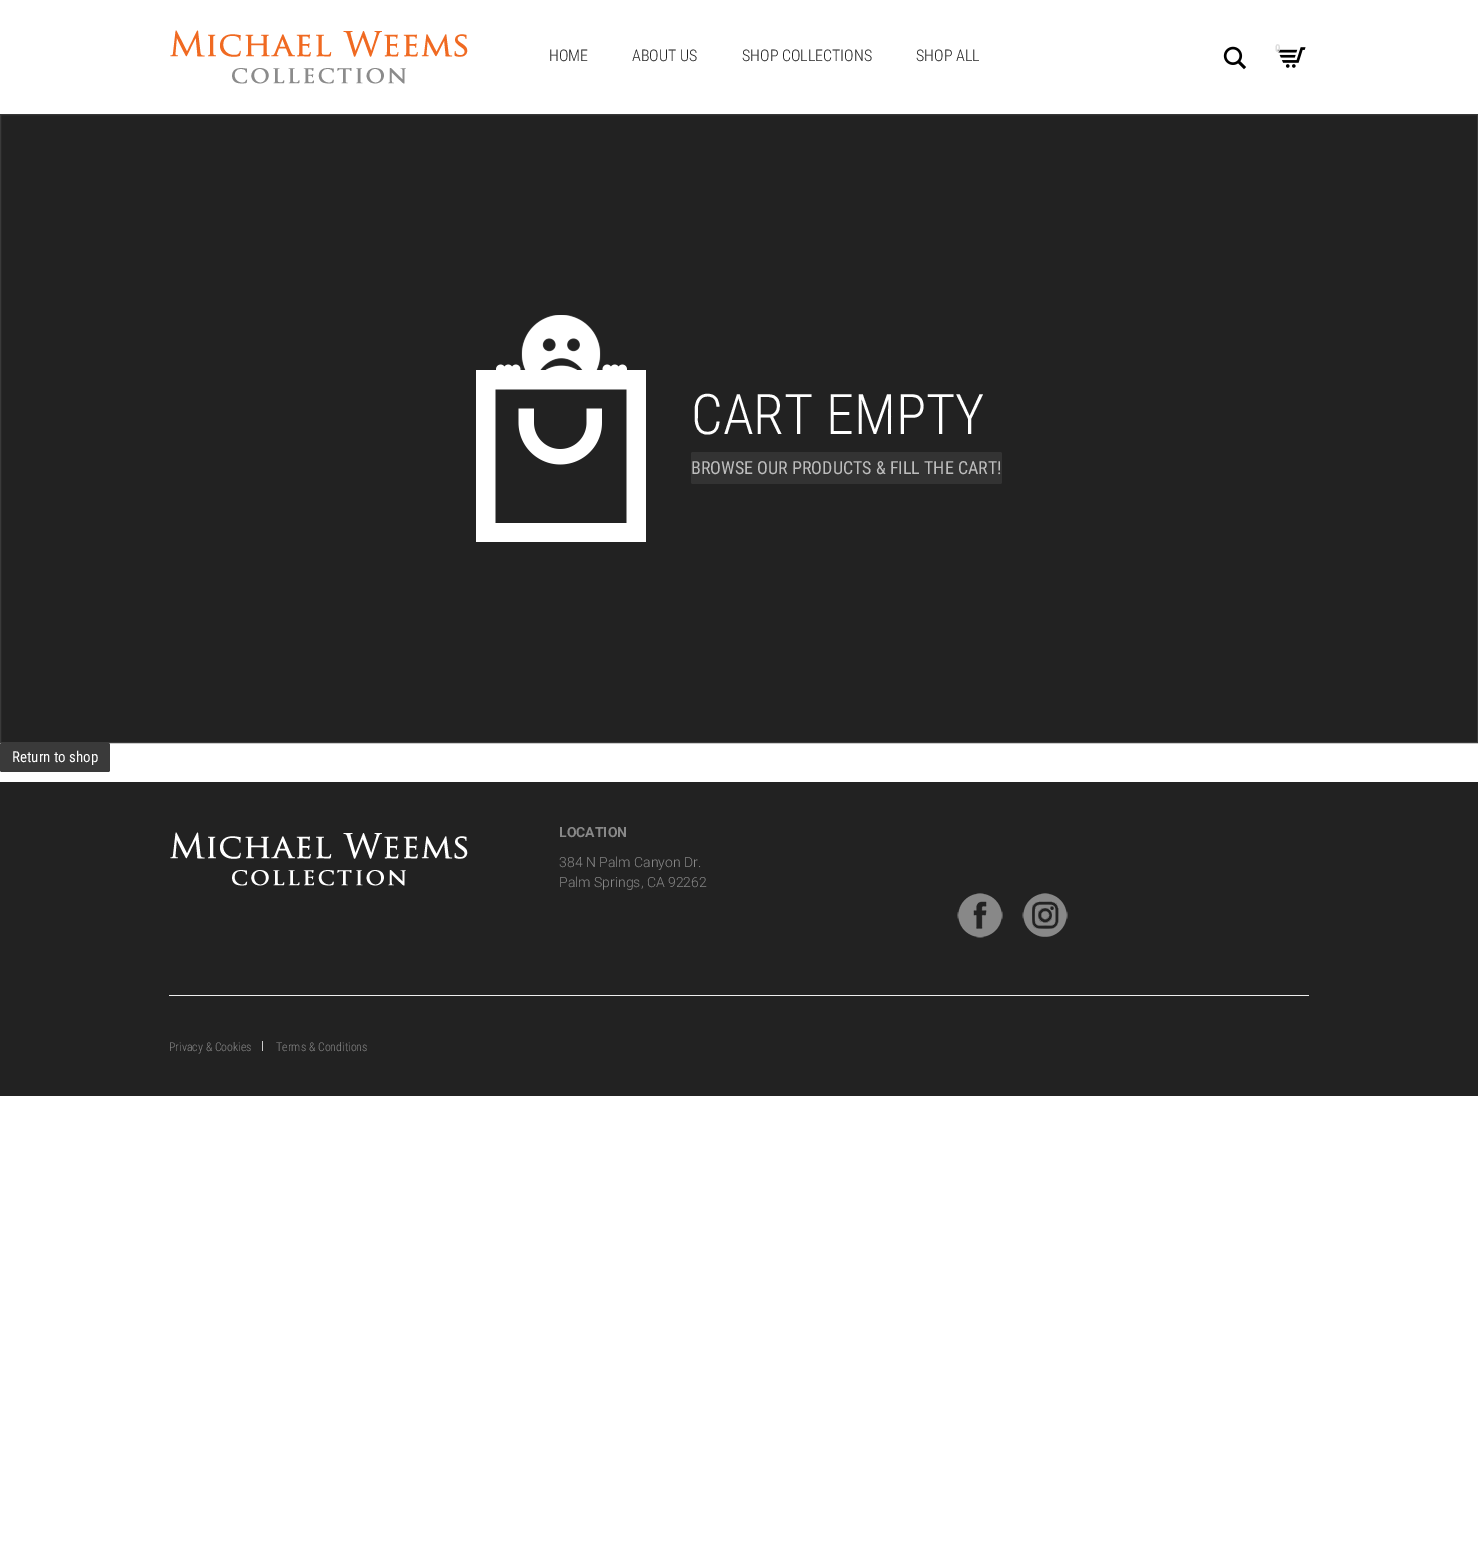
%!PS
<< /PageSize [1478 1543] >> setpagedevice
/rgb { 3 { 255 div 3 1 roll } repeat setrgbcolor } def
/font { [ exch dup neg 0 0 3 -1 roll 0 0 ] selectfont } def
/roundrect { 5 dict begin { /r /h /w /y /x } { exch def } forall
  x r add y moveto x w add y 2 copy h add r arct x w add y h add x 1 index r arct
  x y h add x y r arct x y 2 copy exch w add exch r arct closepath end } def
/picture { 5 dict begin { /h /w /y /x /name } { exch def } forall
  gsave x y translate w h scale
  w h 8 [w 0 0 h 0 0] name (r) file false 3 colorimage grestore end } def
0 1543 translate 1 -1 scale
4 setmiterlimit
255 255 255 rgb
0 0 1478 1543 rectfill
34 34 34 rgb
0.5 114.5 moveto 1477.5 114.5 lineto 1477.5 742.5 lineto 0.5 742.5 lineto closepath gsave fill grestore
58 58 58 rgb
stroke
55 55 55 rgb
0 114 1478 1 rectfill
(img/1.rgb) 170 30 298 54 picture
(img/2.rgb) 1223 46 24 24 picture
(img/3.rgb) 1277 47 29 21 picture
(img/4.rgb) 520 315 81 55 picture
(img/5.rgb) 496 364 131 6 picture
(img/6.rgb) 476 370 170 172 picture
51 51 51 rgb
691 452 311 32 2 roundrect fill
58 58 58 rgb
0 743 110 29 2 roundrect fill
34 34 34 rgb
0 782 1478 314 rectfill
(img/7.rgb) 170 832 298 54 picture
(img/8.rgb) 957 893 46 45 picture
(img/9.rgb) 1022 893 46 44 picture
238 238 238 rgb
169 995 1140 1 rectfill
204 204 204 rgb
262 1041 1 10 rectfill
/RobotoCondensed-Light 16 font
34 34 34 rgb
[
  [(HOME) 549 61]
  [(ABOUT US) 632 61]
  [(SHOP COLLECTIONS) 742 61]
  [(SHOP ALL) 916 61]
] { aload pop moveto show } forall
/RobotoCondensed-Bold 11 font
221 221 221 rgb
1275 52 moveto (0) show
/RobotoCondensed-Light 56 font
255 255 255 rgb
691 434 moveto (CART EMPTY) show
/RobotoCondensed-Regular 18 font
189 189 189 rgb
691 474 moveto (BROWSE OUR PRODUCTS & FILL THE CART!) show
/RobotoCondensed-Regular 15 font
255 255 255 rgb
12 762 moveto (Return to shop) show
/Roboto-Bold 14 font
136 136 136 rgb
559 837 moveto (LOCATION) show
/Roboto-Light 14 font
559 867 moveto (384 N Palm Canyon Dr.) show
559 887 moveto (Palm Springs, CA 92262) show
/RobotoCondensed-Light 12 font
169 1051 moveto (Privacy & Cookies) show
276 1051 moveto (Terms & Conditions) show
showpage
